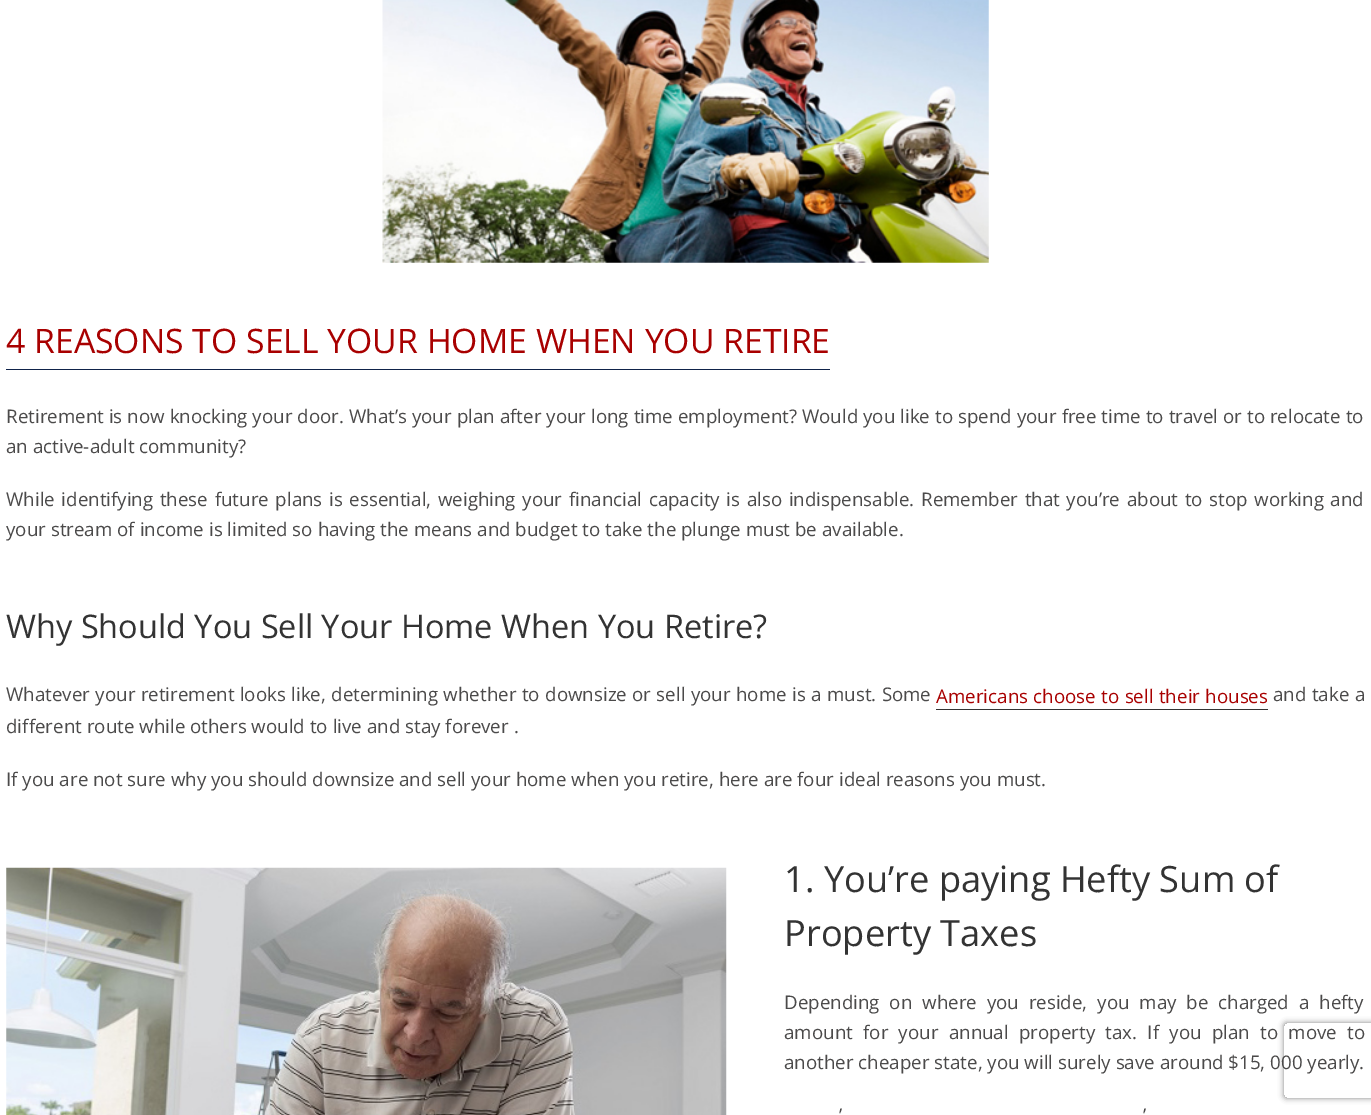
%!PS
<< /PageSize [1371 1115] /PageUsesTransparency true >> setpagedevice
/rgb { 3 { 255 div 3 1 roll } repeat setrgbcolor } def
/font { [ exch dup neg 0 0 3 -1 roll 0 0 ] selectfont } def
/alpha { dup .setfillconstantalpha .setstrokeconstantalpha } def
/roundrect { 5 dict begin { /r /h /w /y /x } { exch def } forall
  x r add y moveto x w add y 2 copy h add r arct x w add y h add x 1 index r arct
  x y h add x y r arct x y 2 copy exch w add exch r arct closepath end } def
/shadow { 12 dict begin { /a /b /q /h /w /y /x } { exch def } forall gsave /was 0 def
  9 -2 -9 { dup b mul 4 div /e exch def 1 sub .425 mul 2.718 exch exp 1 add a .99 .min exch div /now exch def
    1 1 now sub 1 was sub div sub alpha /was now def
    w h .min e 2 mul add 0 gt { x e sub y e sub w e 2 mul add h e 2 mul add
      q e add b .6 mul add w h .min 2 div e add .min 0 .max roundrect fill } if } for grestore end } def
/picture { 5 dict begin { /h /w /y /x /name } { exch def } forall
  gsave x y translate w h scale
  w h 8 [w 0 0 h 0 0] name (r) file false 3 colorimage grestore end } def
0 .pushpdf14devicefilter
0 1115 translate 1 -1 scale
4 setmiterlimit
255 255 255 rgb
0 0 1371 1115 rectfill
(img/1.rgb) 382 0 607 263 picture
15 35 74 rgb
6 369 824 1 rectfill
51 51 51 rgb
936 709 332 1 rectfill
(img/2.rgb) 6 867 721 248 picture
gsave
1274 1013 moveto 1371 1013 lineto 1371 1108 lineto 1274 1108 lineto closepath 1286.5 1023 moveto 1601.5 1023 lineto 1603 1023 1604 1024 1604 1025.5 curveto 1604 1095.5 lineto 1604 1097 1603 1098 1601.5 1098 curveto 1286.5 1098 lineto 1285 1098 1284 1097 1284 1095.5 curveto 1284 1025.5 lineto 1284 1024 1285 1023 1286.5 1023 curveto closepath eoclip newpath
128 128 128 rgb
1284 1023 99 75 2.5 3 1 shadow
grestore
/OpenSans-Regular 33.75 font
168 0 0 rgb
6 353 moveto (4 REASONS TO SELL YOUR HOME WHEN YOU RETIRE) show
/OpenSans-Regular 18.75 font
75 74 74 rgb
6 423 moveto 0.1 0 32 (Retirement is now knocking your door. What’s your plan after your long time employment? Would you like to spend your free time to travel or to relocate to) widthshow
6 453 moveto (an active-adult community?) show
6 506 moveto 1.75 0 32 (While identifying these future plans is essential, weighing your financial capacity is also indispensable. Remember that you’re about to stop working and) widthshow
6 536 moveto (your stream of income is limited so having the means and budget to take the plunge must be available.) show
/OpenSans-Regular 32.5 font
51 51 51 rgb
6 638 moveto (Why Should You Sell Your Home When You Retire?) show
/OpenSans-Regular 18.75 font
75 74 74 rgb
6 701 moveto 0.5 0 32 (Whatever your retirement looks like, determining whether to downsize or sell your home is a must. Some) widthshow
168 0 0 rgb
936 703 moveto 0.5 0 32 (Americans choose to sell their houses) widthshow
75 74 74 rgb
1273 701 moveto 0.5 0 32 (and take a) widthshow
6 733 moveto (different route while others would to live and stay forever .) show
6 786 moveto (If you are not sure why you should downsize and sell your home when you retire, here are four ideal reasons you must.) show
/OpenSans-Regular 36.25 font
51 51 51 rgb
784 892 moveto (1. You’re paying Hefty Sum of) show
784 946 moveto (Property Taxes) show
/OpenSans-Regular 18.75 font
75 74 74 rgb
784 1009 moveto 5 0 32 (Depending on where you reside, you may be charged a hefty) widthshow
784 1039 moveto 5.4 0 32 (amount for your annual property tax. If you plan to move to) widthshow
784 1069 moveto (another cheaper state, you will surely save around $15, 000 yearly.) show
839 1122 moveto 7 0 32 (’) widthshow
1143 1122 moveto 7 0 32 (’) widthshow
.poppdf14devicefilter showpage
